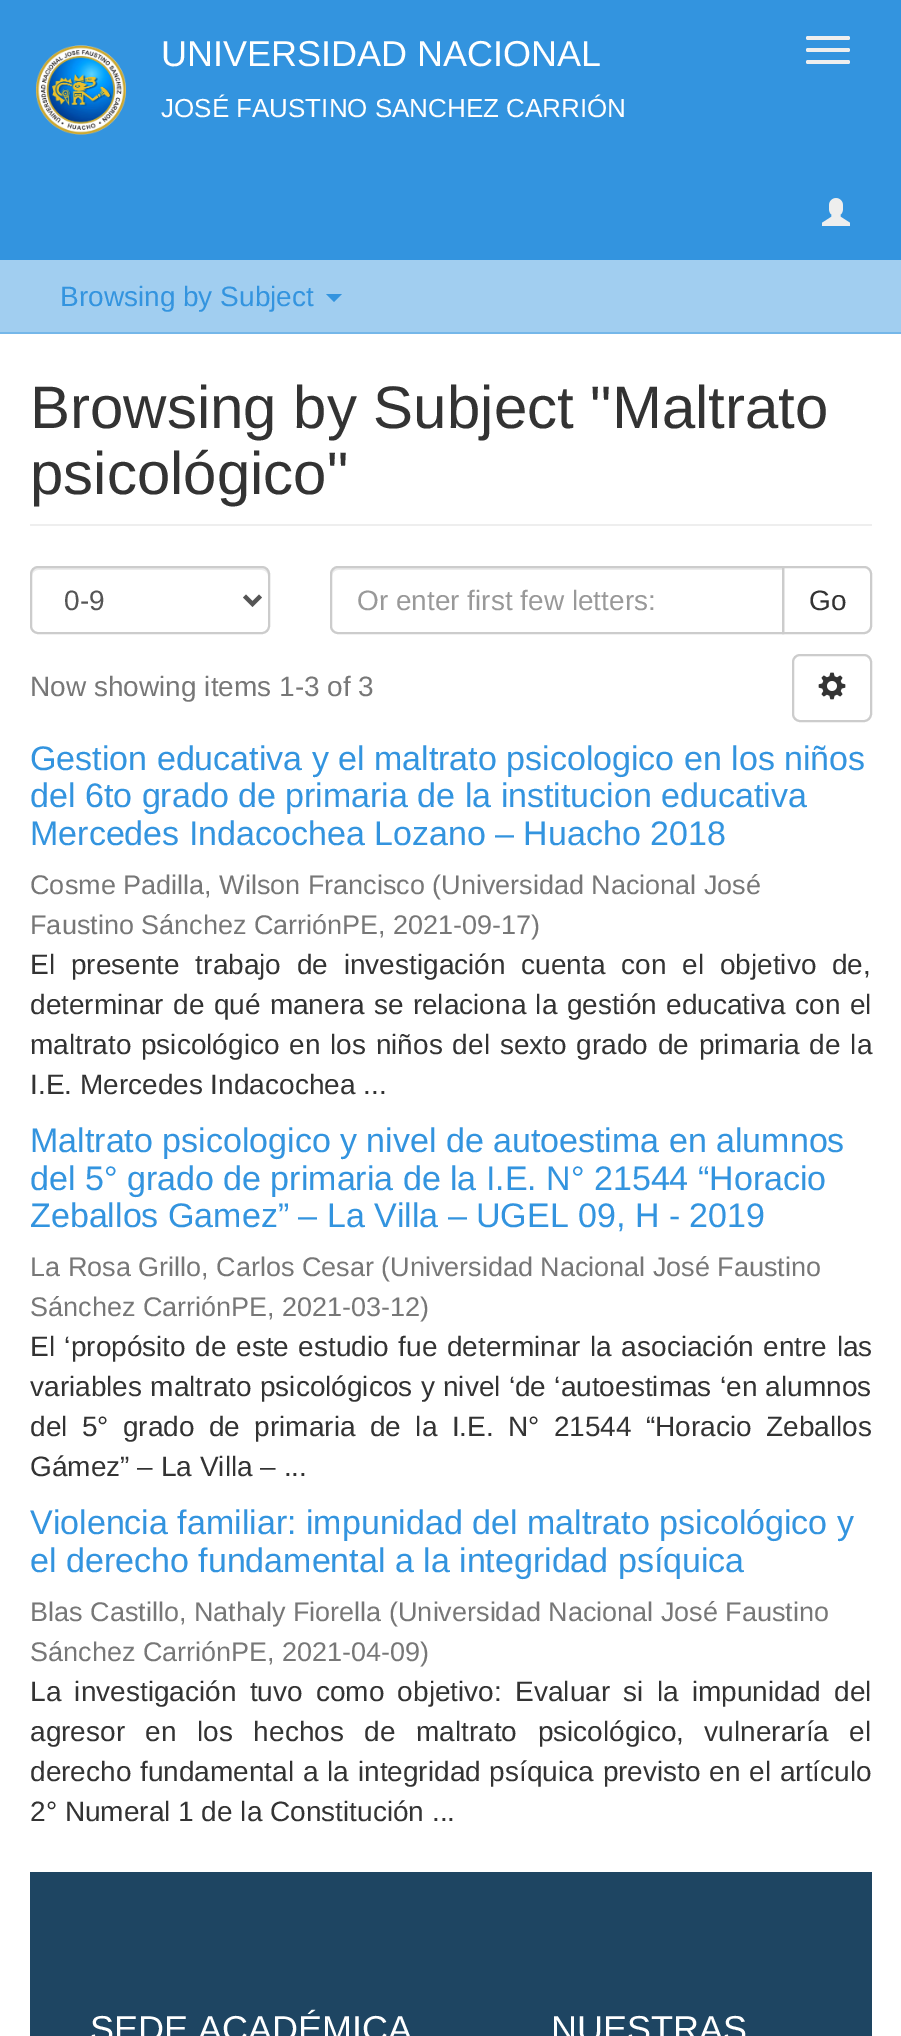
%!PS
<< /PageSize [901 2036] >> setpagedevice
/rgb { 3 { 255 div 3 1 roll } repeat setrgbcolor } def
/font { [ exch dup neg 0 0 3 -1 roll 0 0 ] selectfont } def
/roundrect { 5 dict begin { /r /h /w /y /x } { exch def } forall
  x r add y moveto x w add y 2 copy h add r arct x w add y h add x 1 index r arct
  x y h add x y r arct x y 2 copy exch w add exch r arct closepath end } def
/picture { 5 dict begin { /h /w /y /x /name } { exch def } forall
  gsave x y translate w h scale
  w h 8 [w 0 0 h 0 0] name (r) file false 3 colorimage grestore end } def
0 2036 translate 1 -1 scale
4 setmiterlimit
161 206 240 rgb
0 0 901 2036 rectfill
51 148 223 rgb
0 0 901 260 rectfill
(img/1.rgb) 36 45 90 90 picture
238 238 238 rgb
806 36 44 4 2 roundrect fill
806 48 44 4 2 roundrect fill
806 60 44 4 2 roundrect fill
(img/2.rgb) 822 198 28 28 picture
117 183 233 rgb
0 332 901 2 rectfill
51 148 223 rgb
326 294 moveto 342 294 lineto 334 302 lineto closepath fill
255 255 255 rgb
0 334 901 1702 rectfill
238 238 238 rgb
30 524 842 2 rectfill
236 236 236 rgb
38 570 moveto 262 570 lineto 265 570 268 573 268 576 curveto 268 574 lineto 268 571 265 568 262 568 curveto 38 568 lineto 35 568 32 571 32 574 curveto 32 576 lineto 32 573 35 570 38 570 curveto closepath fill
204 204 204 rgb
2 setlinewidth
31 567 238 66 7 roundrect stroke
85 85 85 rgb
4 setlinewidth
244.5 596 moveto 252.5 604 lineto 260.5 596 lineto stroke
204 204 204 rgb
2 setlinewidth
783 567 moveto 864 567 lineto 868 567 871 570 871 574 curveto 871 626 lineto 871 630 868 633 864 633 curveto 783 633 lineto closepath stroke
255 255 255 rgb
338 566 moveto 784 566 lineto 784 634 lineto 338 634 lineto 333.5 634 330 630.5 330 626 curveto 330 574 lineto 330 569.5 333.5 566 338 566 curveto closepath fill
236 236 236 rgb
338 570 moveto 782 570 lineto 782 568 lineto 338 568 lineto 333 568 332 572 332 576 curveto 332 573 335 570 338 570 curveto closepath fill
204 204 204 rgb
338 567 moveto 783 567 lineto 783 633 lineto 338 633 lineto 334 633 331 630 331 626 curveto 331 574 lineto 331 570 334 567 338 567 curveto closepath stroke
793 655 78 66 7 roundrect stroke
(img/3.rgb) 818 672 28 28 picture
30 69 98 rgb
30 1872 842 164 rectfill
/LiberationSans-Regular 36 font
255 255 255 rgb
161 66 moveto (UNIVERSIDAD NACIONAL) show
/LiberationSans-Regular 26 font
161 117 moveto (JOSÉ FAUSTINO SANCHEZ CARRIÓN) show
/LiberationSans-Regular 28 font
51 148 223 rgb
60 306 moveto (Browsing by Subject) show
/LiberationSans-Regular 60 font
51 51 51 rgb
30 428 moveto (Browsing by Subject "Maltrato) show
30 494 moveto (psicológico") show
/LiberationSans-Regular 28 font
85 85 85 rgb
64 610 moveto (0-9) show
153 153 153 rgb
357 610 moveto (Or enter first few letters:) show
51 51 51 rgb
809 610 moveto (Go) show
119 119 119 rgb
30 696 moveto (Now showing items 1-3 of 3) show
/LiberationSans-Regular 34 font
51 148 223 rgb
[
  [(Gestion educativa y el maltrato psicologico en los niños) 30 770]
  [(del 6to grado de primaria de la institucion educativa) 30 807]
  [(Mercedes Indacochea Lozano – Huacho 2018) 30 845]
] { aload pop moveto show } forall
/LiberationSans-Regular 27 font
119 119 119 rgb
30 894 moveto (Cosme Padilla, Wilson Francisco \(Universidad Nacional José) show
30 934 moveto (Faustino Sánchez CarriónPE, 2021-09-17\)) show
/LiberationSans-Regular 28 font
51 51 51 rgb
30 974 moveto 8 0 32 (El presente trabajo de investigación cuenta con el objetivo de,) widthshow
30 1014 moveto 1.5 0 32 (determinar de qué manera se relaciona la gestión educativa con el) widthshow
30 1054 moveto 2 0 32 (maltrato psicológico en los niños del sexto grado de primaria de la) widthshow
30 1094 moveto (I.E. Mercedes Indacochea ...) show
/LiberationSans-Regular 34 font
51 148 223 rgb
[
  [(Maltrato psicologico y nivel de autoestima en alumnos) 30 1152]
  [(del 5° grado de primaria de la I.E. N° 21544 “Horacio) 30 1190]
  [(Zeballos Gamez” – La Villa – UGEL 09, H - 2019) 30 1227]
] { aload pop moveto show } forall
/LiberationSans-Regular 27 font
119 119 119 rgb
30 1276 moveto (La Rosa Grillo, Carlos Cesar \(Universidad Nacional José Faustino) show
30 1316 moveto (Sánchez CarriónPE, 2021-03-12\)) show
/LiberationSans-Regular 28 font
51 51 51 rgb
30 1356 moveto 1.75 0 32 (El ‘propósito de este estudio fue determinar la asociación entre las) widthshow
30 1396 moveto 0.5 0 32 (variables maltrato psicológicos y nivel ‘de ‘autoestimas ‘en alumnos) widthshow
30 1436 moveto 6.6 0 32 (del 5° grado de primaria de la I.E. N° 21544 “Horacio Zeballos) widthshow
30 1476 moveto (Gámez” – La Villa – ...) show
/LiberationSans-Regular 34 font
51 148 223 rgb
30 1534 moveto (Violencia familiar: impunidad del maltrato psicológico y) show
30 1572 moveto (el derecho fundamental a la integridad psíquica) show
/LiberationSans-Regular 27 font
119 119 119 rgb
[
  [(Blas Castillo, Nathaly Fiorella) 30 1621]
  [(\(Universidad Nacional José Faustino) 389 1621]
  [(Sánchez CarriónPE, 2021-04-09\)) 30 1661]
] { aload pop moveto show } forall
/LiberationSans-Regular 28 font
51 51 51 rgb
30 1701 moveto 5.5 0 32 (La investigación tuvo como objetivo: Evaluar si la impunidad del) widthshow
30 1741 moveto 12.75 0 32 (agresor en los hechos de maltrato psicológico, vulneraría el) widthshow
30 1781 moveto 1 0 32 (derecho fundamental a la integridad psíquica previsto en el artículo) widthshow
30 1821 moveto (2° Numeral 1 de la Constitución ...) show
/LiberationSans-Regular 36 font
255 255 255 rgb
90 2041 moveto (SEDE ACADÉMICA) show
551 2041 moveto (NUESTRAS) show
showpage
